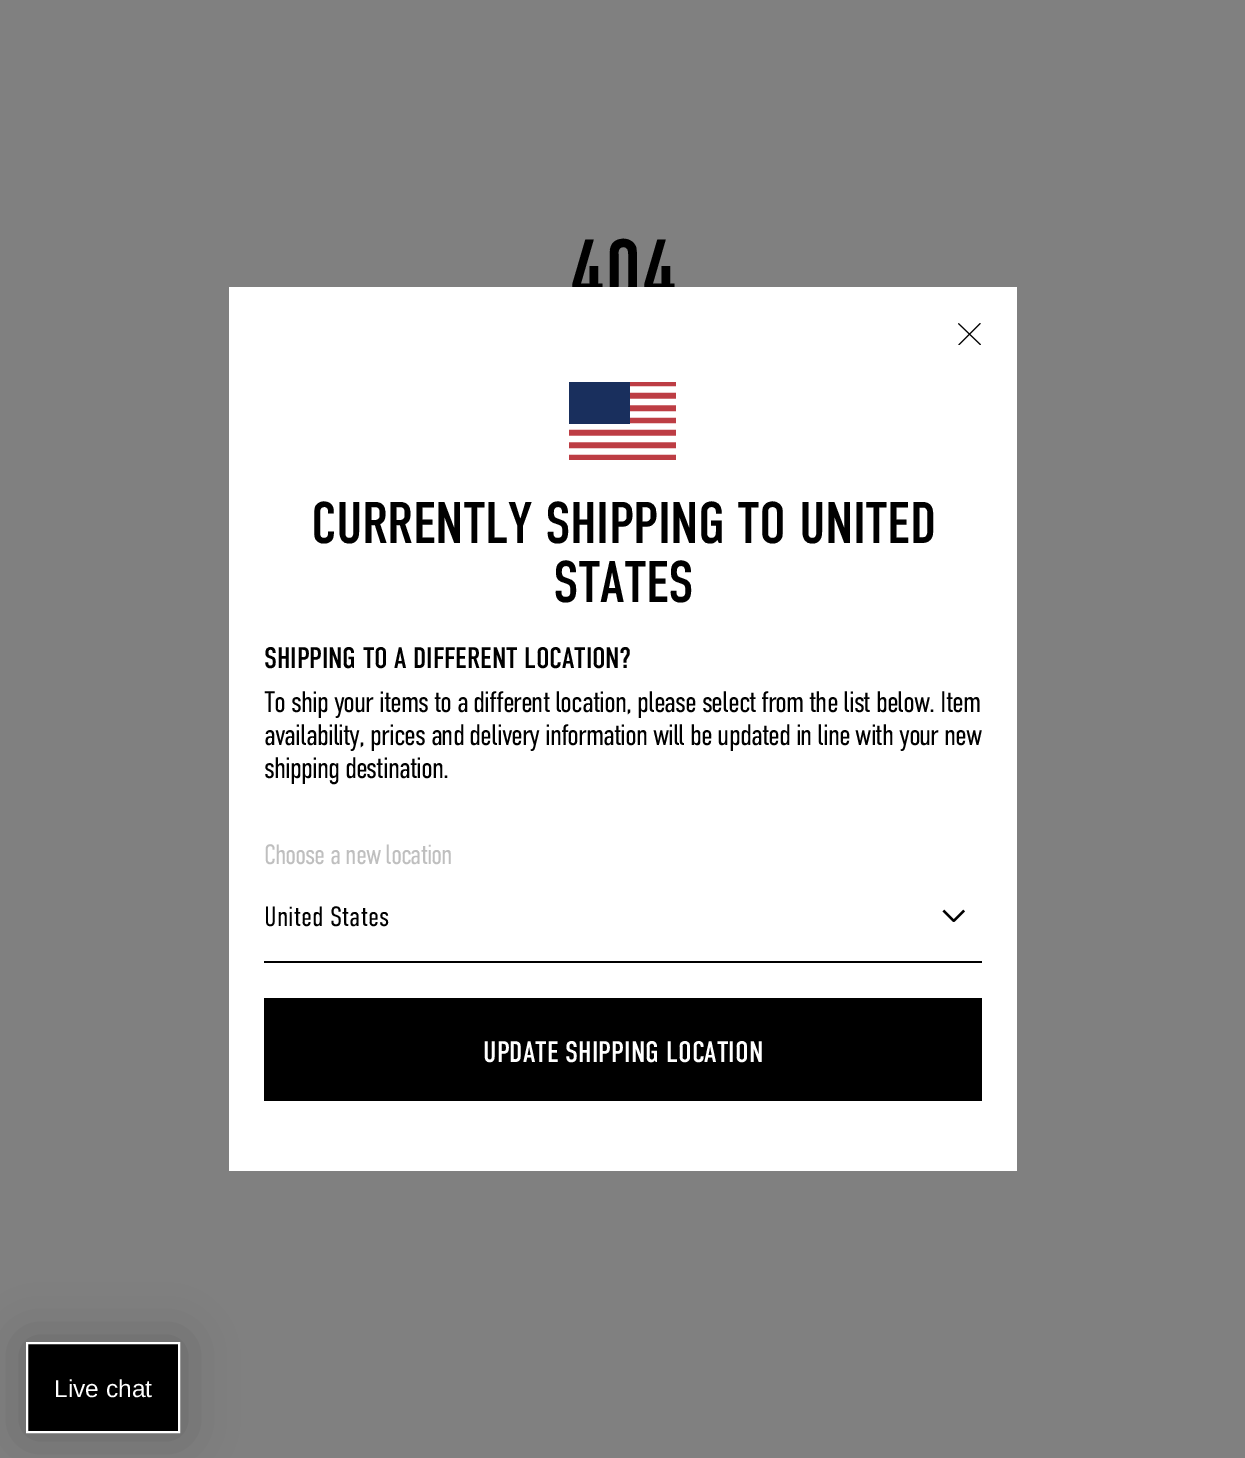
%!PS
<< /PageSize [1245 1458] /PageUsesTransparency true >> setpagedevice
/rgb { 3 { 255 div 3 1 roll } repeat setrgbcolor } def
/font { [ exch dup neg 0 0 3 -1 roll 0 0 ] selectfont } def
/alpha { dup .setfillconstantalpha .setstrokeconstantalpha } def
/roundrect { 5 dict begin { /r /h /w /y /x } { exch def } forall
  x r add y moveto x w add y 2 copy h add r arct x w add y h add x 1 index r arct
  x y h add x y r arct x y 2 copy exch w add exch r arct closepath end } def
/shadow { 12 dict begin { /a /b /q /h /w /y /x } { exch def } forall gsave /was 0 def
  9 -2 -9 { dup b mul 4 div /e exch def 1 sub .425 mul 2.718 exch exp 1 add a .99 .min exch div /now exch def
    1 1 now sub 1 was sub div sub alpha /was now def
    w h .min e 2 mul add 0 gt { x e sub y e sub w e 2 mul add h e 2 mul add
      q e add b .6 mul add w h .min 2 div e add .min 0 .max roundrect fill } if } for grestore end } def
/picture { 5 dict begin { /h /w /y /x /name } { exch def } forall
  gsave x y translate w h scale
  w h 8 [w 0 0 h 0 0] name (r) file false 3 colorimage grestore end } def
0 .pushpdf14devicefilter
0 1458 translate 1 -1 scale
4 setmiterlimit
128 128 128 rgb
0 0 1245 1458 rectfill
0 0 0 rgb
25 1341 157 94 0 26 0.2 shadow
27 1343 moveto 179 1343 lineto 179 1432 lineto 27 1432 lineto closepath gsave fill grestore
255 255 255 rgb
2 setlinewidth
stroke
/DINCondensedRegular-Regular 88 font
0 0 0 rgb
569 301 moveto -0.7 0 (404) ashow
255 255 255 rgb
229 287 788 884 rectfill
(img/1.rgb) 958 323 23 22 picture
gsave
569 382 108 78 rectclip
189 61 68 rgb
569 380 moveto 676 380 lineto 676 461 lineto 569 461 lineto fill
grestore
6.2 setlinewidth
569 389.5 moveto 676 389.5 lineto 569 402 moveto 676 402 lineto 569 414.5 moveto 676 414.5 lineto 569 426.5 moveto 676 426.5 lineto 569 439 moveto 676 439 lineto 569 451.5 moveto 676 451.5 lineto stroke
gsave
569 382 108 78 rectclip
25 47 93 rgb
569 380 moveto 630 380 lineto 630 424 lineto 569 424 lineto fill
grestore
/DINCondensedRegular-Regular 58.75 font
0 0 0 rgb
311 543 moveto -0.7 0 (CURRENTLY SHIPPING TO) ashow
799 543 moveto -0.7 0 (UNITED) ashow
553 602 moveto -0.7 0 (STATES) ashow
/DINCondensedRegular-Regular 29.75 font
264 668 moveto -0.2 0 (SHIPPING TO A DIFFERENT LOCATION?) ashow
/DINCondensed-Light 29.75 font
264 712 moveto -1.12 0 (To ship your items to a different location, please select from the list below. Item) ashow
264 745 moveto -1.12 0 (availability, prices and delivery information will be updated in line with your new) ashow
264 778 moveto -1.12 0 (shipping destination.) ashow
/DINCondensed-Light 28 font
191 191 191 rgb
264 864 moveto -1.12 0 (Choose a new location) ashow
(img/2.rgb) 942 909 23 13 picture
0 0 0 rgb
264 961 718 2 rectfill
264 926 moveto (United States) show
264 998 718 103 rectfill
/DINCondensedRegular-Regular 29.75 font
255 255 255 rgb
483 1062 moveto (UPDATE SHIPPING LOCATION) show
/LiberationSans-Regular 24.5 font
54 1397 moveto (Live chat) show
.poppdf14devicefilter showpage
